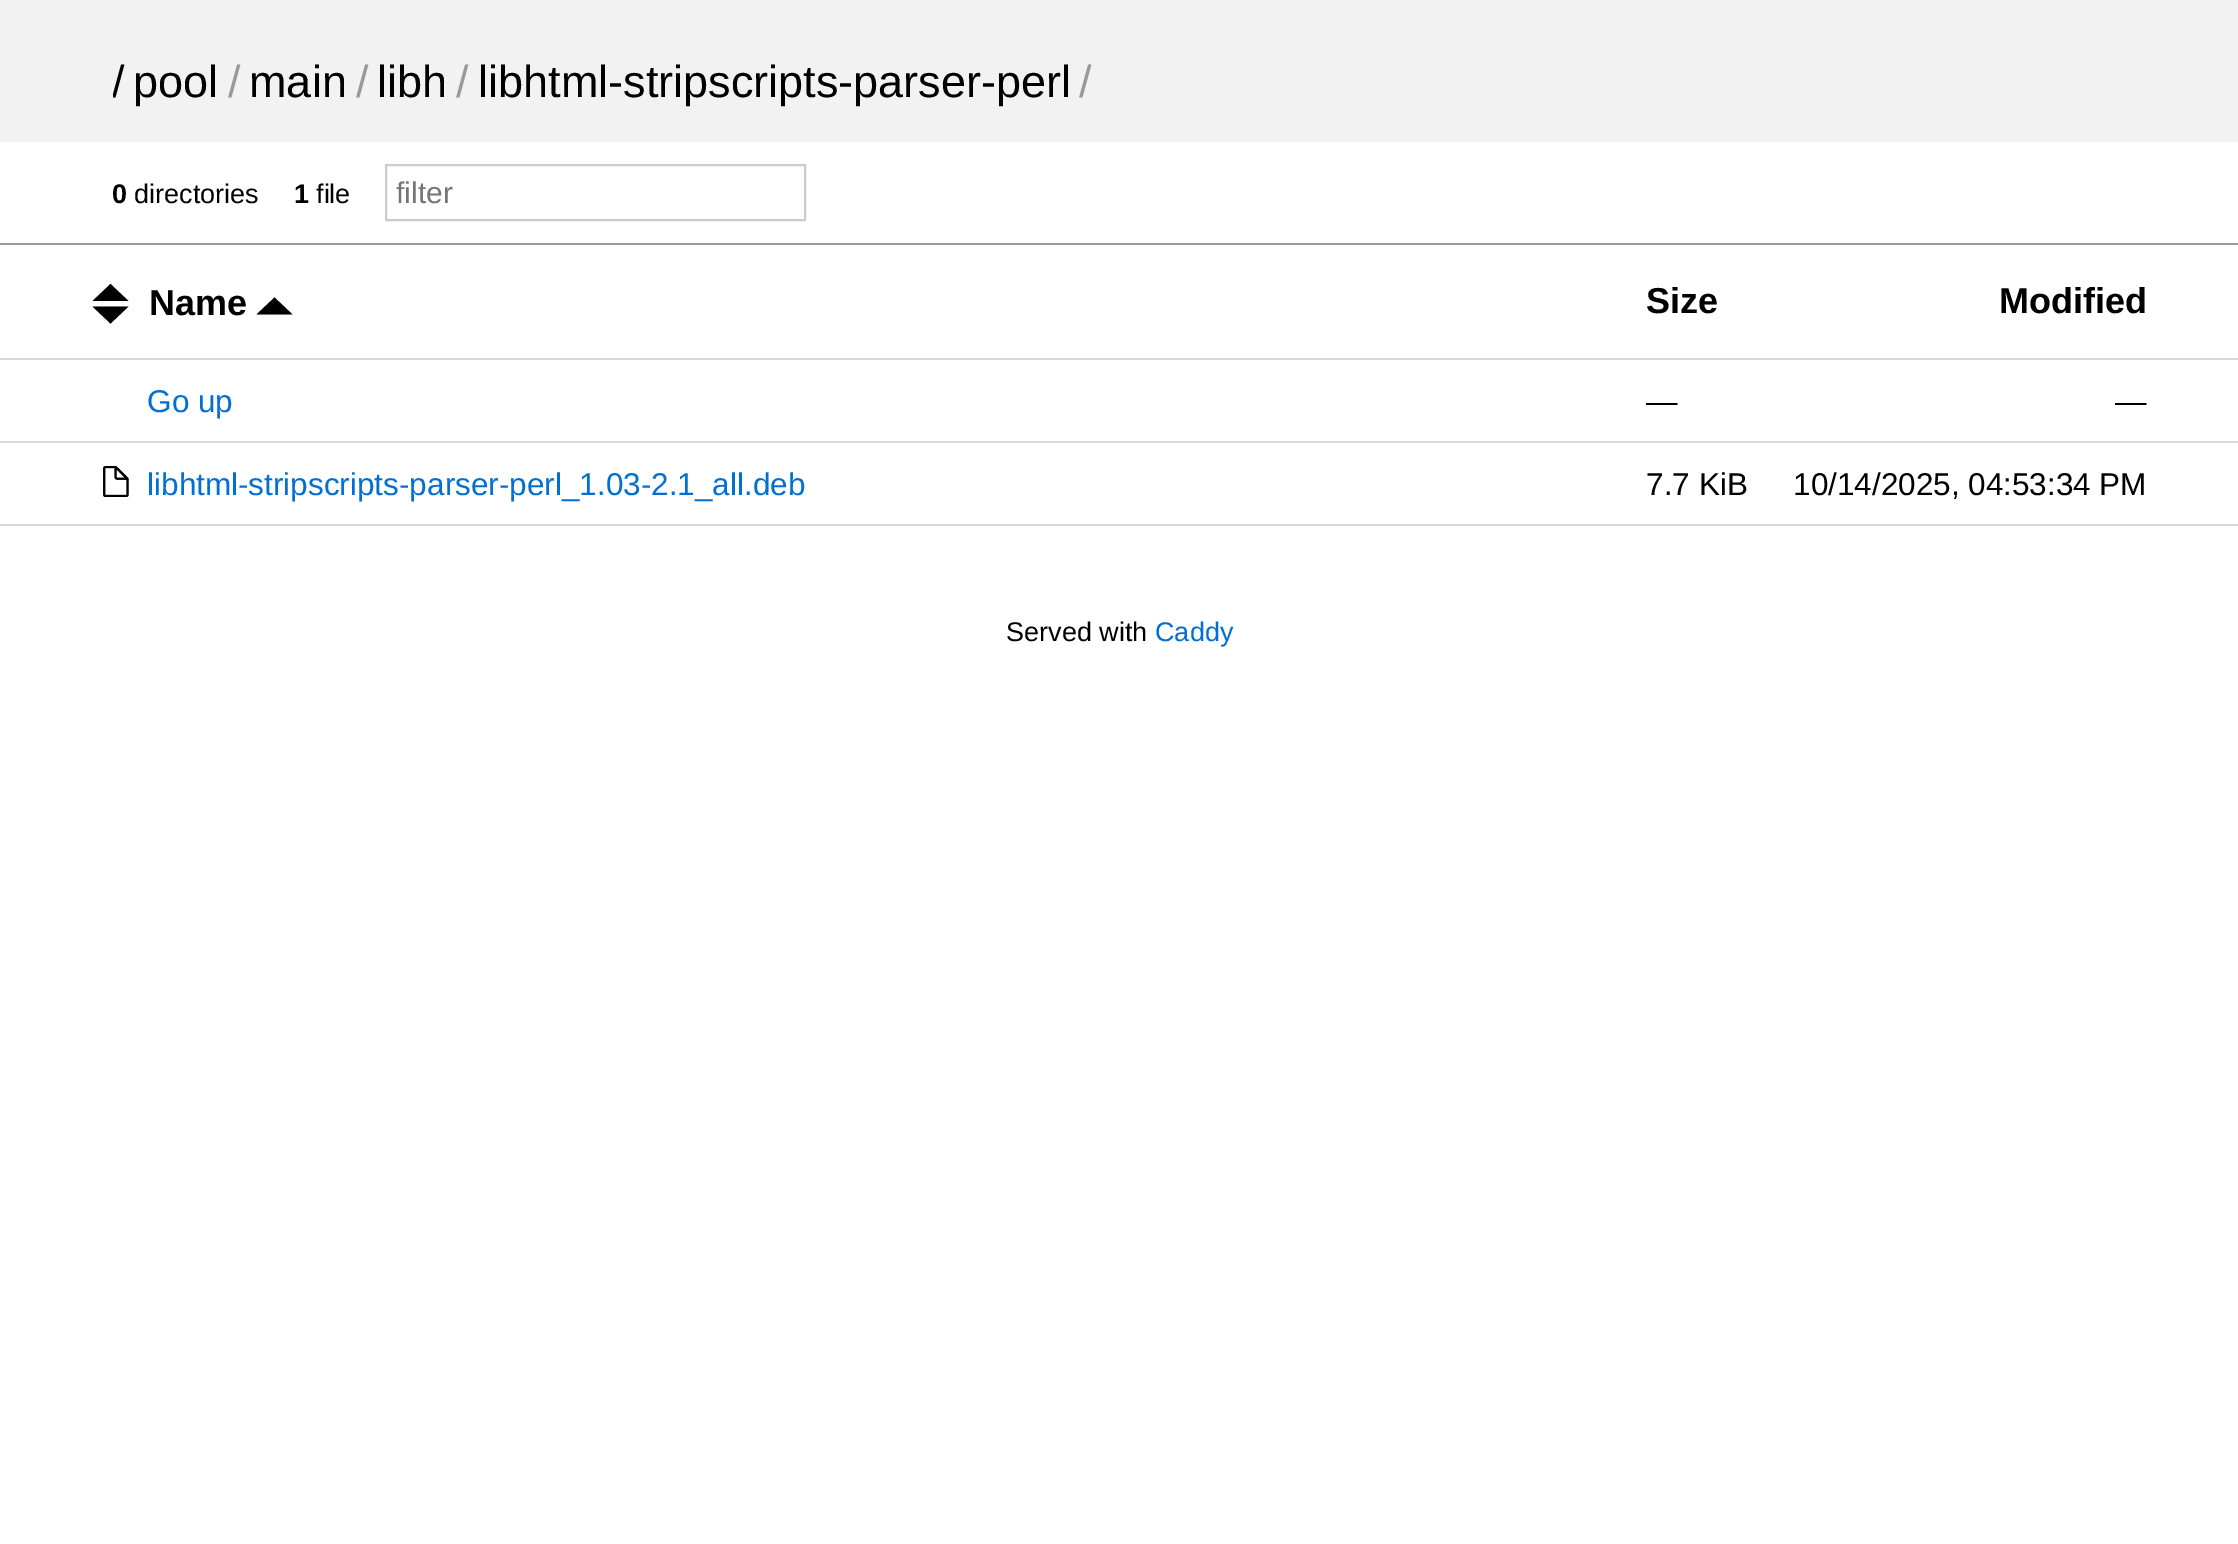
%!PS
<< /PageSize [2238 1544] >> setpagedevice
/rgb { 3 { 255 div 3 1 roll } repeat setrgbcolor } def
/font { [ exch dup neg 0 0 3 -1 roll 0 0 ] selectfont } def
/picture { 5 dict begin { /h /w /y /x /name } { exch def } forall
  gsave x y translate w h scale
  w h 8 [w 0 0 h 0 0] name (r) file false 3 colorimage grestore end } def
0 1544 translate 1 -1 scale
4 setmiterlimit
255 255 255 rgb
0 0 2238 1544 rectfill
242 242 242 rgb
0 0 2238 142 rectfill
156 156 156 rgb
0 243 2238 2 rectfill
204 204 204 rgb
2 setlinewidth
386 165 419 55 rectstroke
218 218 218 rgb
0 358 2238 2 rectfill
0 0 0 rgb
128.5 301 moveto 92.5 301 lineto 110.5 284 lineto 119.5 292.5 lineto closepath 128.5 306.5 moveto 92.5 306.5 lineto 110.5 323.5 lineto 119.5 315 lineto closepath fill
292.5 314.5 moveto 256.5 314.5 lineto 274.5 297.5 lineto 283.5 306 lineto closepath fill
218 218 218 rgb
0 441 2238 2 rectfill
0 524 2238 2 rectfill
(img/1.rgb) 103 466 26 31 picture
gsave
113 56 2013 52 rectclip
/LiberationSans-Regular 45 font
0 0 0 rgb
112 97 moveto (/) show
grestore
/LiberationSans-Regular 45 font
0 0 0 rgb
133 97 moveto (pool) show
153 153 153 rgb
228 97 moveto (/) show
0 0 0 rgb
249 97 moveto (main) show
153 153 153 rgb
356 97 moveto (/) show
0 0 0 rgb
377 97 moveto (libh) show
153 153 153 rgb
456 97 moveto (/) show
0 0 0 rgb
478 97 moveto (libhtml-stripscripts-parser-perl) show
153 153 153 rgb
1079 97 moveto (/) show
/LiberationSans-Bold 27 font
0 0 0 rgb
112 203 moveto (0) show
/LiberationSans-Regular 27 font
134 203 moveto (directories) show
/LiberationSans-Bold 27 font
294 203 moveto (1) show
/LiberationSans-Regular 27 font
316 203 moveto (file) show
/LiberationSans-Regular 30 font
117 117 117 rgb
396 203 moveto (filter) show
/LiberationSans-Bold 36 font
0 0 0 rgb
[
  [(Name) 149 315]
  [(Size) 1646 313]
  [(Modified) 1999 313]
] { aload pop moveto show } forall
/LiberationSans-Regular 31.5 font
0 110 211 rgb
147 412 moveto (Go up) show
0 0 0 rgb
1646 412 moveto (—) show
2115 412 moveto (—) show
0 110 211 rgb
147 495 moveto (libhtml-stripscripts-parser-perl_1.03-2.1_all.deb) show
0 0 0 rgb
1646 495 moveto (7.7 KiB) show
1793 495 moveto (10/14/2025, 04:53:34 PM) show
/LiberationSans-Regular 27 font
1006 641 moveto (Served with) show
0 110 211 rgb
1155 641 moveto (Caddy) show
showpage
